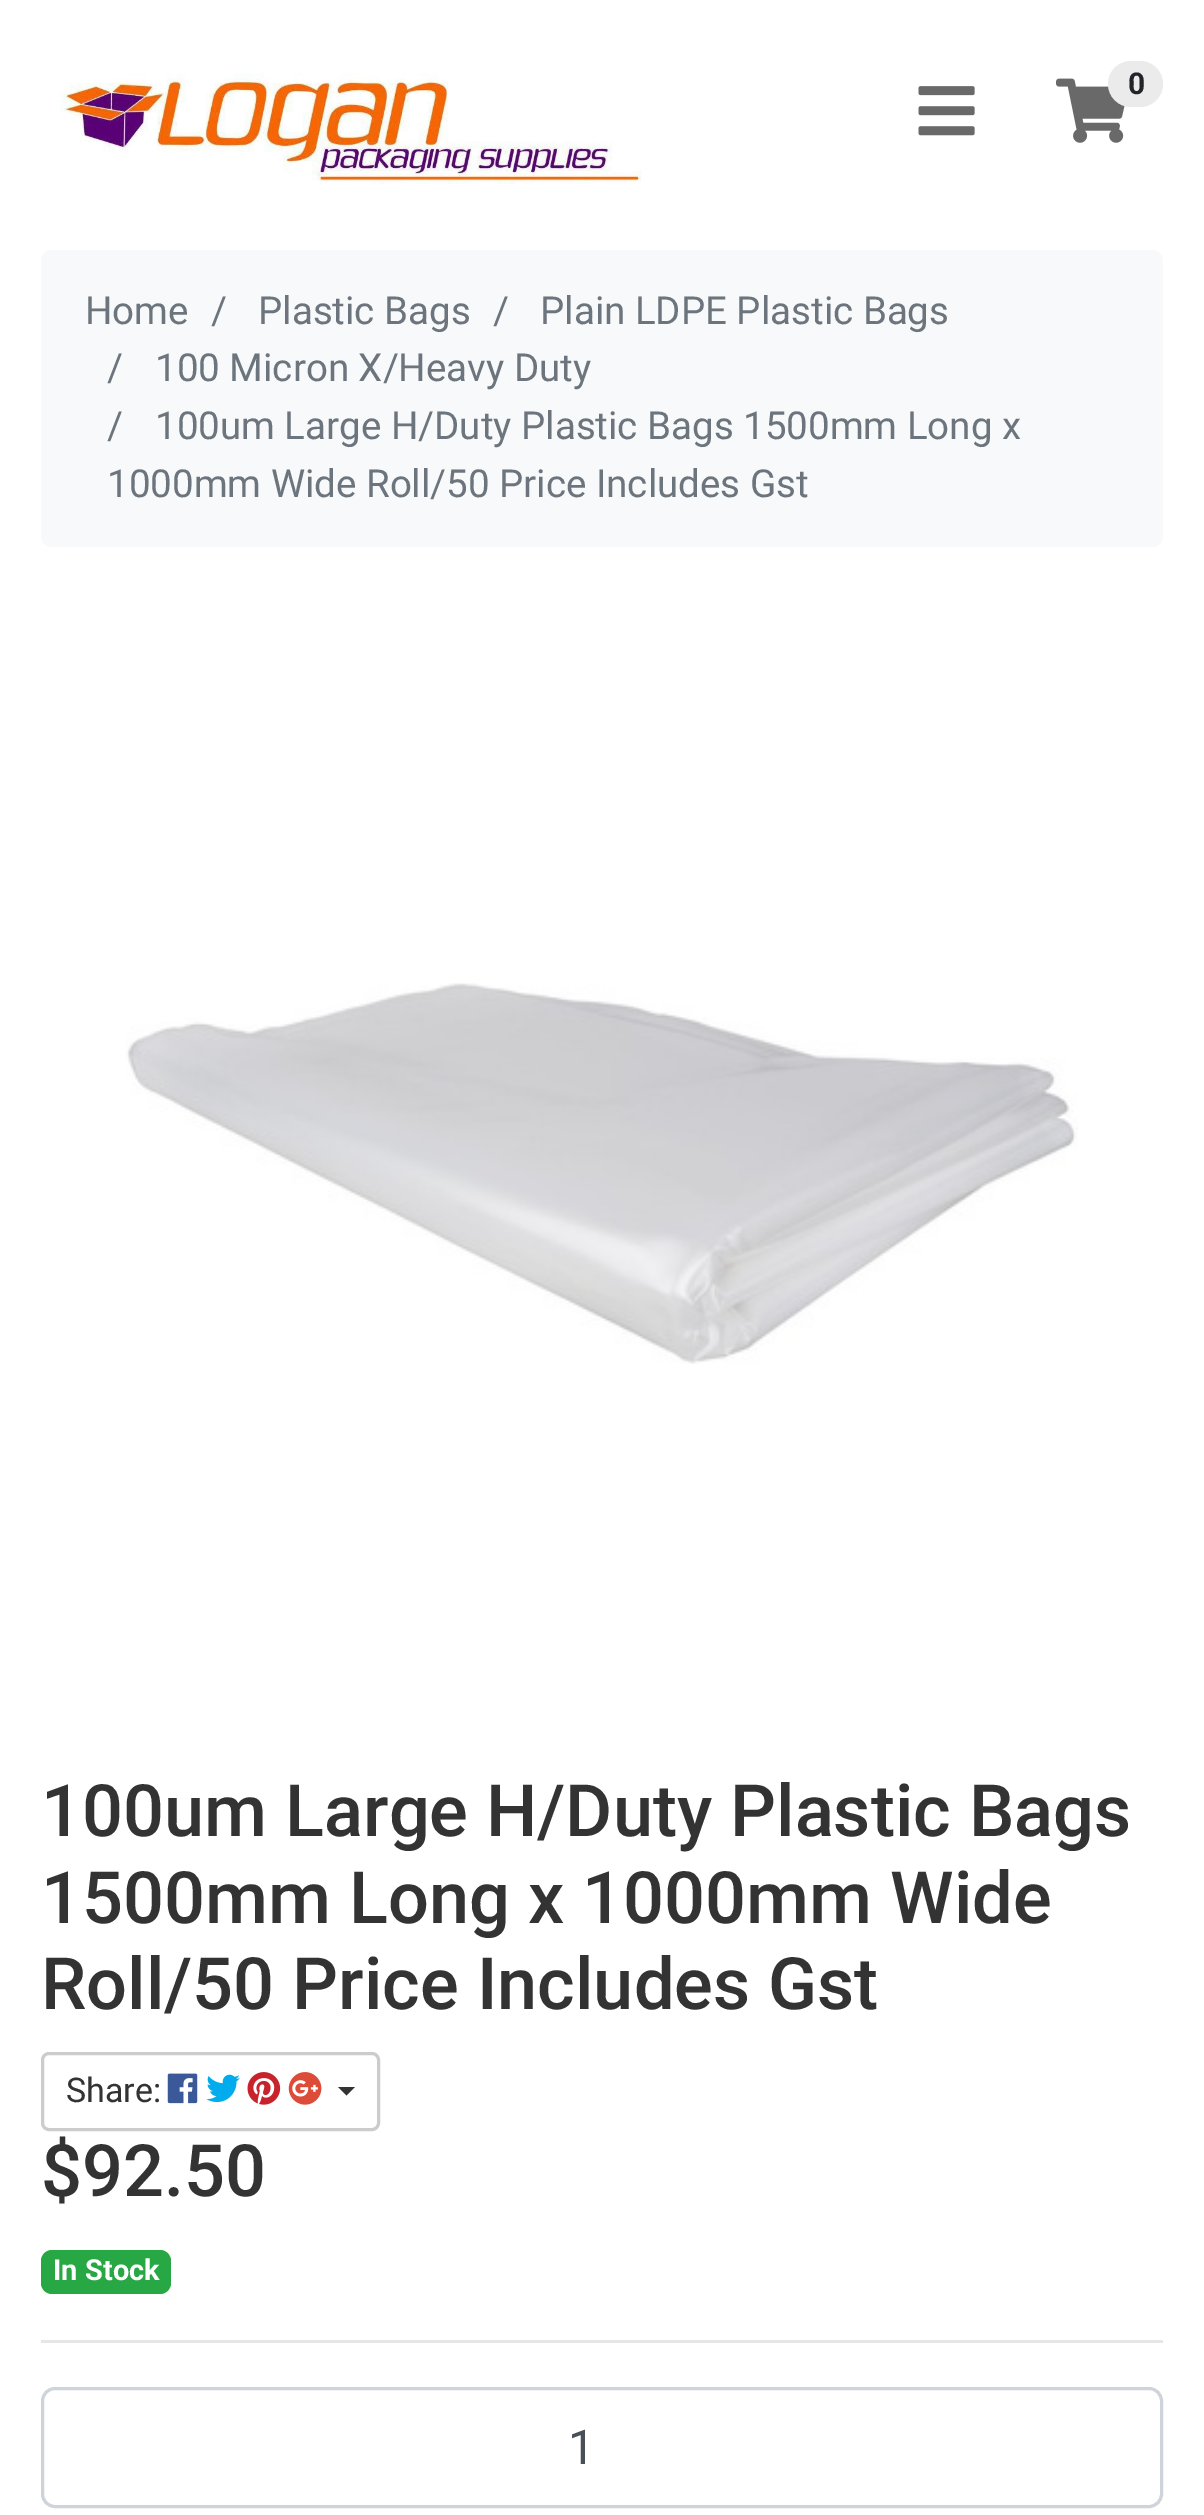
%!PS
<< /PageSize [1204 2515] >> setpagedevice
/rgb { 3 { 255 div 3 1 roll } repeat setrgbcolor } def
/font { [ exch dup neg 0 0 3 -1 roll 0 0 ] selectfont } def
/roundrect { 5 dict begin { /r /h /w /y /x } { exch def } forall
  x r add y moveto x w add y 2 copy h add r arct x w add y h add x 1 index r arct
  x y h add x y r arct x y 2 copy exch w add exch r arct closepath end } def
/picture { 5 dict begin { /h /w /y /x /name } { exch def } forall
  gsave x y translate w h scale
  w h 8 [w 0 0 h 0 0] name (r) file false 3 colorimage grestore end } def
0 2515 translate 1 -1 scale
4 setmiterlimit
255 255 255 rgb
0 0 1204 2515 rectfill
(img/1.rgb) 60 73 582 112 picture
(img/2.rgb) 1056 78 69 65 picture
235 235 235 rgb
1108 61 55 46 23 roundrect fill
(img/3.rgb) 918 86 57 50 picture
248 249 250 rgb
41 250 1122 297 11 roundrect fill
(img/4.rgb) 126 983 952 381 picture
204 204 204 rgb
3 setlinewidth
42.5 2053.5 336 76 6.5 roundrect stroke
(img/5.rgb) 167 2073 31 31 picture
(img/6.rgb) 206 2074 34 29 picture
(img/7.rgb) 247 2072 34 33 picture
(img/8.rgb) 288 2072 34 33 picture
51 51 51 rgb
338 2087 moveto 355 2087 lineto 346.5 2095.5 lineto closepath fill
40 167 69 rgb
41 2250 130 44 11 roundrect fill
230 230 230 rgb
41 2340 1122 3 rectfill
206 212 218 rgb
42.5 2388.5 1119 118 12.5 roundrect stroke
/Roboto-Bold 30 font
33 37 41 rgb
1128 94 moveto (0) show
/Roboto-Regular 38.5 font
108 117 125 rgb
[
  [(Home) 85 324]
  [(/) 211 324]
  [(Plastic Bags) 258 324]
  [(/) 493 324]
  [(Plain LDPE Plastic Bags) 540 324]
  [(/) 107 381]
  [(100 Micron X/Heavy Duty) 155 381]
  [(/) 107 439]
  [(100um Large H/Duty Plastic Bags 1500mm Long x) 155 439]
  [(1000mm Wide Roll/50 Price Includes Gst) 107 497]
] { aload pop moveto show } forall
/Roboto-Medium 72.2 font
51 51 51 rgb
[
  [(100um Large H/Duty Plastic Bags) 41 1836]
  [(1500mm Long x 1000mm Wide) 41 1923]
  [(Roll/50 Price Includes Gst) 41 2009]
] { aload pop moveto show } forall
/Roboto-Regular 34 font
66 2102 moveto (Share:) show
/Roboto-Medium 72.2 font
41 2196 moveto ($92.50) show
/Roboto-Bold 29 font
255 255 255 rgb
53 2280 moveto (In Stock) show
/Roboto-Regular 48 font
73 80 87 rgb
568 2464 moveto (1) show
showpage
